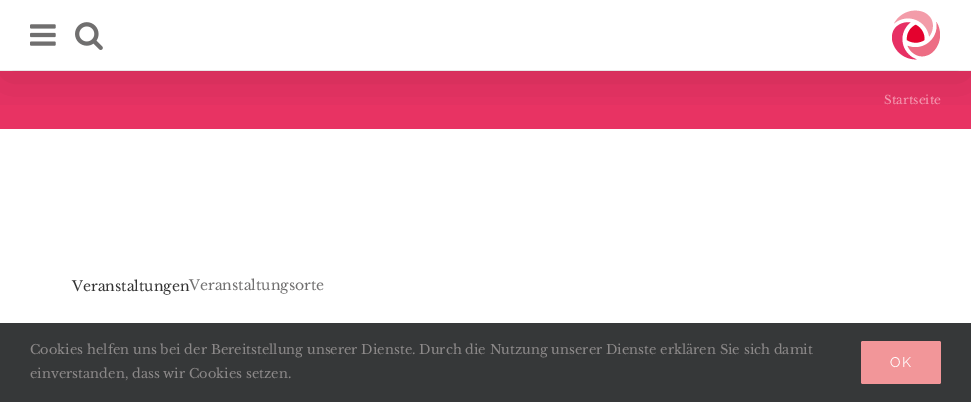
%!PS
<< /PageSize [971 402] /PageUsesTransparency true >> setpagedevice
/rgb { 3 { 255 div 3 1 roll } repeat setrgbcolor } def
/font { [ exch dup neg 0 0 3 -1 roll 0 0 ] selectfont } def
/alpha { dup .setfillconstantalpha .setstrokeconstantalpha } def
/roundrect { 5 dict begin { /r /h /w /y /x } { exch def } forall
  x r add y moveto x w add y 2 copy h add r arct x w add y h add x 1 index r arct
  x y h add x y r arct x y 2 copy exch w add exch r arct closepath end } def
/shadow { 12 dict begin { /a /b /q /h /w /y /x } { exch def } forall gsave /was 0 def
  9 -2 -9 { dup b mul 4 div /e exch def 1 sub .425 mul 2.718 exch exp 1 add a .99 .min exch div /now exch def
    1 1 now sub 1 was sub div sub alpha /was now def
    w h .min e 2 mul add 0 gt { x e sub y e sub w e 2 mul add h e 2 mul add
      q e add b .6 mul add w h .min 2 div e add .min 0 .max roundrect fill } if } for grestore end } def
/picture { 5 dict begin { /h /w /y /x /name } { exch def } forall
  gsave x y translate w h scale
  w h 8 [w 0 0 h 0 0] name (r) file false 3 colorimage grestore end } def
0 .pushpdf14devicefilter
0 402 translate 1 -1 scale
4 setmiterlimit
255 255 255 rgb
0 0 971 402 rectfill
232 51 99 rgb
0 71 971 58 rectfill
gsave
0 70 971 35 rectclip
0 0 0 rgb
2 12 967 66 0 25 0.14 shadow
grestore
(img/1.rgb) 30 24 26 22 picture
(img/2.rgb) 75 22 28 28 picture
(img/3.rgb) 892 10 48 50 picture
54 56 57 rgb
0 323 971 79 rectfill
242 150 153 rgb
861 341 80 43 2 roundrect fill
/LibreBaskerville-Regular 12 font
244 153 177 rgb
884 104 moveto (Startseite) show
/LibreBaskerville-Regular 14 font
112 111 111 rgb
189 290 moveto (Veranstaltungsorte) show
51 51 51 rgb
72 291 moveto (Veranstaltungen) show
/LibreBaskerville-Regular 13 font
140 137 137 rgb
30 354 moveto (Cookies helfen uns bei der Bereitstellung unserer Dienste. Durch die Nutzung unserer Dienste erklären Sie sich damit) show
30 378 moveto (einverstanden, dass wir Cookies setzen.) show
/Raleway-Regular 14 font
255 255 255 rgb
890 367 moveto 1 0 (OK) ashow
.poppdf14devicefilter showpage
